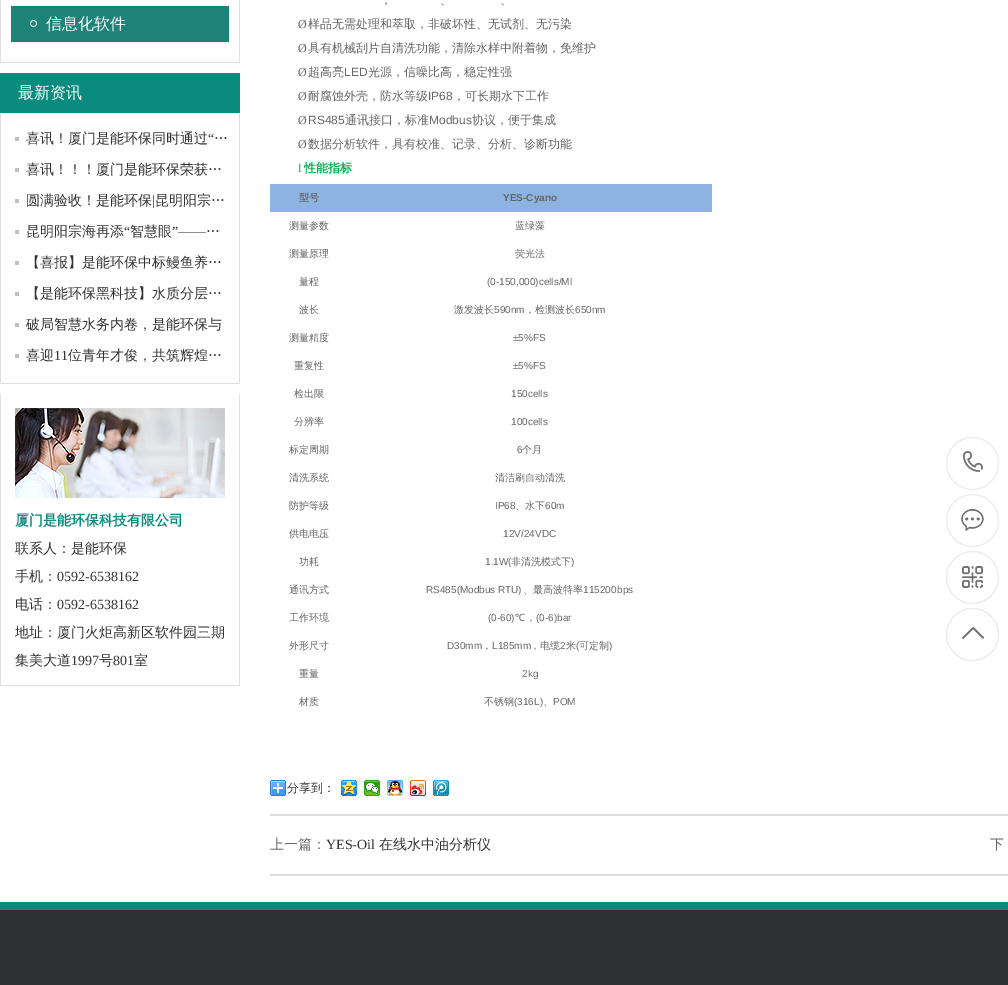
%!PS
<< /PageSize [1008 985] >> setpagedevice
/rgb { 3 { 255 div 3 1 roll } repeat setrgbcolor } def
/font { [ exch dup neg 0 0 3 -1 roll 0 0 ] selectfont } def
/circle { newpath 0 360 arc closepath } def
/picture { 5 dict begin { /h /w /y /x /name } { exch def } forall
  gsave x y translate w h scale
  w h 8 [w 0 0 h 0 0] name (r) file false 3 colorimage grestore end } def
0 985 translate 1 -1 scale
4 setmiterlimit
255 255 255 rgb
0 0 1008 985 rectfill
[
  [239 0 1 63 224 224 224]
  [0 62 240 1 224 224 224]
  [0 0 1 63 224 224 224]
  [11 6 218 36 30 132 121]
] { aload pop rgb rectfill } forall
(img/1.rgb) 30 20 7 7 picture
[
  [0 73 240 40 11 139 126]
  [239 113 1 271 224 224 224]
  [0 383 240 1 224 224 224]
  [0 113 1 271 224 224 224]
  [15 137 4 4 192 192 192]
  [15 168 4 4 192 192 192]
  [15 199 4 4 192 192 192]
  [15 230 4 4 192 192 192]
  [15 261 4 4 192 192 192]
  [15 292 4 4 192 192 192]
  [15 323 4 4 192 192 192]
  [15 354 4 4 192 192 192]
  [239 394 1 292 224 224 224]
  [0 685 240 1 224 224 224]
  [0 394 1 292 224 224 224]
] { aload pop rgb rectfill } forall
(img/2.rgb) 15 408 210 90 picture
141 179 226 rgb
270 184 442 28 rectfill
(img/3.rgb) 270 780 16 16 picture
(img/4.rgb) 341 780 16 16 picture
(img/5.rgb) 364 780 16 16 picture
(img/6.rgb) 387 780 16 16 picture
(img/7.rgb) 410 780 16 16 picture
(img/8.rgb) 433 780 16 16 picture
221 221 221 rgb
270 814 738 2 rectfill
270 874 738 2 rectfill
235 235 235 rgb
972.5 463.5 26 circle stroke
(img/9.rgb) 963 451 20 21 picture
972.5 520.5 26 circle stroke
(img/10.rgb) 961 509 23 22 picture
972.5 577.5 26 circle stroke
(img/11.rgb) 962 566 21 22 picture
972.5 634.5 26 circle stroke
(img/12.rgb) 962 627 22 12 picture
46 48 51 rgb
0 910 1008 75 rectfill
11 139 126 rgb
0 902 1008 8 rectfill
/WenQuanYiZenHei-Medium 16 font
255 255 255 rgb
46 29 moveto (信息化软件) show
18 98 moveto (最新资讯) show
/WenQuanYiZenHei-Medium 14 font
51 51 51 rgb
26 143 moveto (喜讯！厦门是能环保同时通过) show
/LiberationSerif-Regular 14 font
208 143 moveto (“) show
/WenQuanYiZenHei-Medium 14 font
[
  [(…) 214 143]
  [(喜讯！！！厦门是能环保荣获…) 26 174]
  [(圆满验收！是能环保) 26 205]
] { aload pop moveto show } forall
/LiberationSerif-Regular 14 font
152 205 moveto (|) show
/WenQuanYiZenHei-Medium 14 font
155 205 moveto (昆明阳宗…) show
26 236 moveto (昆明阳宗海再添) show
/LiberationSerif-Regular 14 font
124 236 moveto (“) show
/WenQuanYiZenHei-Medium 14 font
130 236 moveto (智慧眼) show
/LiberationSerif-Regular 14 font
172 236 moveto (”——) show
/WenQuanYiZenHei-Medium 14 font
[
  [(…) 206 236]
  [(【喜报】是能环保中标鳗鱼养…) 26 267]
  [(【是能环保黑科技】水质分层…) 26 298]
  [(破局智慧水务内卷，是能环保与) 26 329]
  [(喜迎) 26 360]
] { aload pop moveto show } forall
/LiberationSerif-Regular 14 font
54 360 moveto (11) show
/WenQuanYiZenHei-Medium 14 font
68 360 moveto (位青年才俊，共筑辉煌…) show
/WenQuanYiZenHei-Bold 14 font
11 139 126 rgb
15 525 moveto (厦门是能环保科技有限公司) show
/WenQuanYiZenHei-Medium 14 font
51 51 51 rgb
15 553 moveto (联系人：是能环保) show
15 581 moveto (手机：) show
/LiberationSerif-Regular 14 font
57 581 moveto (0592-6538162) show
/WenQuanYiZenHei-Medium 14 font
15 609 moveto (电话：) show
/LiberationSerif-Regular 14 font
57 609 moveto (0592-6538162) show
/WenQuanYiZenHei-Medium 14 font
15 637 moveto (地址：厦门火炬高新区软件园三期) show
15 665 moveto (集美大道) show
/LiberationSerif-Regular 14 font
71 665 moveto (1997) show
/WenQuanYiZenHei-Medium 14 font
99 665 moveto (号) show
/LiberationSerif-Regular 14 font
113 665 moveto (801) show
/WenQuanYiZenHei-Medium 14 font
134 665 moveto (室) show
/WenQuanYiZenHei-Medium 12 font
102 102 102 rgb
[
  [(，) 380 4]
  [(、) 440 4]
  [(、) 500 4]
] { aload pop moveto show } forall
/LiberationSerif-Regular 12 font
298 28 moveto (Ø) show
/WenQuanYiZenHei-Medium 12 font
308 28 moveto (样品无需处理和萃取，非破坏性、无试剂、无污染) show
/LiberationSerif-Regular 12 font
298 52 moveto (Ø) show
/WenQuanYiZenHei-Medium 12 font
308 52 moveto (具有机械刮片自清洗功能，清除水样中附着物，免维护) show
/LiberationSerif-Regular 12 font
298 76 moveto (Ø) show
/WenQuanYiZenHei-Medium 12 font
308 76 moveto (超高亮) show
/LiberationSans-Regular 12 font
344 76 moveto (LED) show
/WenQuanYiZenHei-Medium 12 font
368 76 moveto (光源，信噪比高，稳定性强) show
/LiberationSerif-Regular 12 font
298 100 moveto (Ø) show
/WenQuanYiZenHei-Medium 12 font
308 100 moveto (耐腐蚀外壳，防水等级) show
/LiberationSans-Regular 12 font
428 100 moveto (IP68) show
/WenQuanYiZenHei-Medium 12 font
453 100 moveto (，可长期水下工作) show
/LiberationSerif-Regular 12 font
298 124 moveto (Ø) show
/LiberationSans-Regular 12 font
308 124 moveto (RS485) show
/WenQuanYiZenHei-Medium 12 font
345 124 moveto (通讯接口，标准) show
/LiberationSans-Regular 12 font
429 124 moveto (Modbus) show
/WenQuanYiZenHei-Medium 12 font
472 124 moveto (协议，便于集成) show
/LiberationSerif-Regular 12 font
298 148 moveto (Ø) show
/WenQuanYiZenHei-Medium 12 font
308 148 moveto (数据分析软件，具有校准、记录、分析、诊断功能) show
/LiberationSerif-Regular 12 font
0 176 80 rgb
298 172 moveto (l) show
/WenQuanYiZenHei-Bold 12 font
304 172 moveto (性能指标) show
/WenQuanYiZenHei-Bold 10 font
102 102 102 rgb
299 201 moveto (型号) show
/LiberationSans-Bold 10 font
503 201 moveto (YES-Cyano) show
/WenQuanYiZenHei-Medium 10 font
[
  [(测量参数) 289 229]
  [(蓝绿藻) 515 229]
  [(测量原理) 289 257]
  [(荧光法) 515 257]
  [(量程) 299 285]
] { aload pop moveto show } forall
/LiberationSans-Regular 10 font
487 285 moveto (\(0-150,000\)cells/Ml) show
/WenQuanYiZenHei-Medium 10 font
299 313 moveto (波长) show
454 313 moveto (激发波长) show
/LiberationSans-Regular 10 font
494 313 moveto (590nm) show
/WenQuanYiZenHei-Medium 10 font
525 313 moveto (，检测波长) show
/LiberationSans-Regular 10 font
575 313 moveto (650nm) show
/WenQuanYiZenHei-Medium 10 font
289 341 moveto (测量精度) show
/LiberationSans-Regular 10 font
513 341 moveto (±5%FS) show
/WenQuanYiZenHei-Medium 10 font
294 369 moveto (重复性) show
/LiberationSans-Regular 10 font
513 369 moveto (±5%FS) show
/WenQuanYiZenHei-Medium 10 font
294 397 moveto (检出限) show
/LiberationSans-Regular 10 font
511 397 moveto (150cells) show
/WenQuanYiZenHei-Medium 10 font
294 425 moveto (分辨率) show
/LiberationSans-Regular 10 font
511 425 moveto (100cells) show
/WenQuanYiZenHei-Medium 10 font
289 453 moveto (标定周期) show
/LiberationSans-Regular 10 font
517 453 moveto (6) show
/WenQuanYiZenHei-Medium 10 font
[
  [(个月) 522 453]
  [(清洗系统) 289 481]
  [(清洁刷自动清洗) 495 481]
  [(防护等级) 289 509]
] { aload pop moveto show } forall
/LiberationSans-Regular 10 font
495 509 moveto (IP68) show
/WenQuanYiZenHei-Medium 10 font
515 509 moveto (、水下) show
/LiberationSans-Regular 10 font
545 509 moveto (60m) show
/WenQuanYiZenHei-Medium 10 font
289 537 moveto (供电电压) show
/LiberationSans-Regular 10 font
503 537 moveto -2 0 32 (12V/24V DC) widthshow
/WenQuanYiZenHei-Medium 10 font
299 565 moveto (功耗) show
/LiberationSans-Regular 10 font
485 565 moveto (1.1W\() show
/WenQuanYiZenHei-Medium 10 font
511 565 moveto (非清洗模式下) show
/LiberationSans-Regular 10 font
571 565 moveto (\)) show
/WenQuanYiZenHei-Medium 10 font
289 593 moveto (通讯方式) show
/LiberationSans-Regular 10 font
426 593 moveto -2 0 32 (RS485\(Modbus   RTU\)) widthshow
/WenQuanYiZenHei-Medium 10 font
523 593 moveto (、最高波特率) show
/LiberationSans-Regular 10 font
583 593 moveto -2 0 32 (115200 bps) widthshow
/WenQuanYiZenHei-Medium 10 font
289 621 moveto (工作环境) show
/LiberationSans-Regular 10 font
488 621 moveto (\(0-60\)) show
/NotoSans-Regular 10 font
515 621 moveto (℃) show
/WenQuanYiZenHei-Medium 10 font
526 621 moveto (，) show
/LiberationSans-Regular 10 font
536 621 moveto (\(0-6\)bar) show
/WenQuanYiZenHei-Medium 10 font
289 649 moveto (外形尺寸) show
/LiberationSans-Regular 10 font
447 649 moveto (D30mm) show
/WenQuanYiZenHei-Medium 10 font
482 649 moveto (，) show
/LiberationSans-Regular 10 font
492 649 moveto (L185mm) show
/WenQuanYiZenHei-Medium 10 font
530 649 moveto (，电缆) show
/LiberationSans-Regular 10 font
560 649 moveto (2) show
/WenQuanYiZenHei-Medium 10 font
566 649 moveto (米) show
/LiberationSans-Regular 10 font
576 649 moveto (\() show
/WenQuanYiZenHei-Medium 10 font
579 649 moveto (可定制) show
/LiberationSans-Regular 10 font
609 649 moveto (\)) show
/WenQuanYiZenHei-Medium 10 font
299 677 moveto (重量) show
/LiberationSans-Regular 10 font
522 677 moveto (2kg) show
/WenQuanYiZenHei-Medium 10 font
299 705 moveto (材质) show
484 705 moveto (不锈钢) show
/LiberationSans-Regular 10 font
514 705 moveto (\(316L\)) show
/WenQuanYiZenHei-Medium 10 font
543 705 moveto (、) show
/LiberationSans-Regular 10 font
553 705 moveto (POM) show
/WenQuanYiZenHei-Medium 12 font
51 51 51 rgb
287 792 moveto (分享到：) show
/WenQuanYiZenHei-Medium 14 font
102 102 102 rgb
270 849 moveto (上一篇：) show
/LiberationSerif-Regular 14 font
51 51 51 rgb
326 849 moveto (YES-Oil) show
/WenQuanYiZenHei-Medium 14 font
379 849 moveto (在线水中油分析仪) show
102 102 102 rgb
990 849 moveto (下) show
showpage
